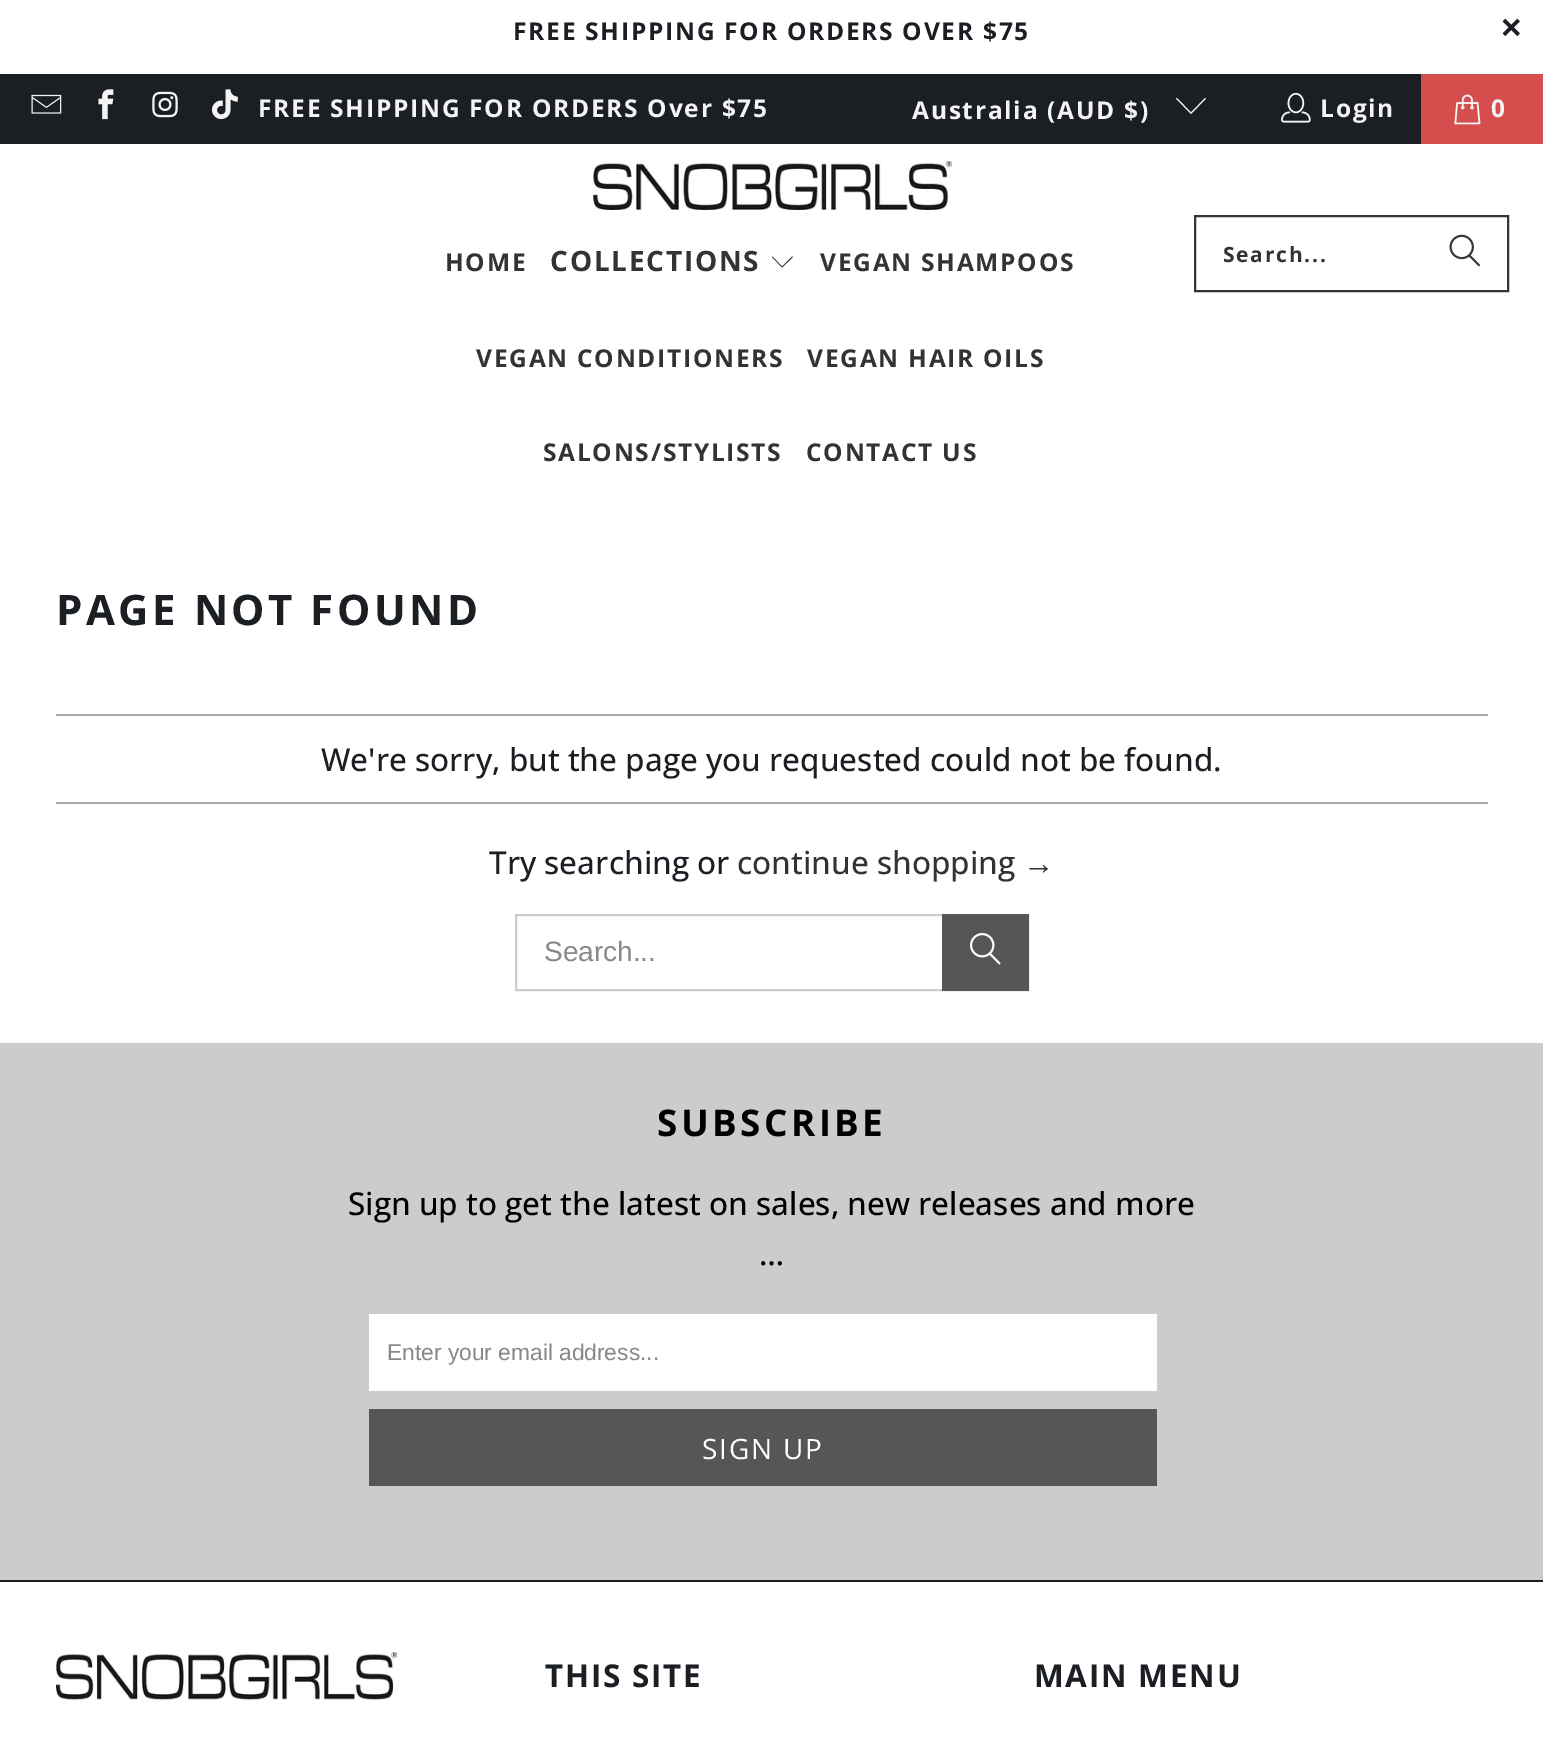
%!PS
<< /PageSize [1543 1740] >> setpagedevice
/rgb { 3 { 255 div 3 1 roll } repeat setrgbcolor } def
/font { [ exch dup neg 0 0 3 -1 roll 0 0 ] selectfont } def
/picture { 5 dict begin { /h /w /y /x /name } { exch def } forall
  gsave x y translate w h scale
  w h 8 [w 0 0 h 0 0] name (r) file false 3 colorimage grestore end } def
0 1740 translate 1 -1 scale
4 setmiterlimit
255 255 255 rgb
0 0 1543 1740 rectfill
27 31 35 rgb
0 74 1421 70 rectfill
(img/1.rgb) 31 94 31 20 picture
(img/2.rgb) 98 89 16 31 picture
(img/3.rgb) 152 91 26 27 picture
(img/4.rgb) 211 89 27 31 picture
244 244 244 rgb
1191 114 moveto 1176 98.5 lineto 1177 98 lineto 1191 112.5 lineto 1205 98 lineto 1206 98.5 lineto closepath fill
(img/5.rgb) 1281 92 30 31 picture
213 77 77 rgb
1421 74 122 70 rectfill
(img/6.rgb) 1454 94 27 31 picture
(img/7.rgb) 593 161 359 49 picture
54 54 54 rgb
782 267.5 moveto 772 257 lineto 772.5 256.5 lineto 782 266.5 lineto 792 256.5 lineto 793 257 lineto closepath fill
2 setlinewidth
1195 216 313 75 rectstroke
(img/8.rgb) 1449 234 31 33 picture
170 170 170 rgb
56 714 1432 2 rectfill
56 802 1432 2 rectfill
204 204 204 rgb
516 915 512 75 rectstroke
86 86 86 rgb
942 914 87 77 rectfill
(img/9.rgb) 970 933 31 32 picture
[
  [0 1043 1543 537 204 204 204]
  [369 1314 788 77 255 255 255]
  [369 1409 788 77 86 86 86]
  [0 1580 1543 2 27 31 35]
] { aload pop rgb rectfill } forall
(img/10.rgb) 56 1652 342 48 picture
/OpenSans-Bold 24.5 font
513 40 moveto 1.75 0 (FREE SHIPPING FOR ORDERS OVER $75) ashow
/LiberationSans-Bold 35 font
1501 39 moveto 3.5 0 (×) ashow
/OpenSans-Bold 24.5 font
244 244 244 rgb
258 117 moveto 1.75 0 (FREE SHIPPING FOR ORDERS Over $75) ashow
912 119 moveto 1.75 0 (Australia \(AUD $\)) ashow
1320 117 moveto 1.75 0 (Login) ashow
1491 117 moveto 1.75 0 (0) ashow
51 51 51 rgb
445 271 moveto 1.75 0 (HOME) ashow
/OpenSans-Bold 28 font
550 271 moveto 1.75 0 (COLLECTIONS) ashow
/OpenSans-Bold 24.5 font
820 271 moveto 1.75 0 (VEGAN SHAMPOOS) ashow
476 367 moveto 1.75 0 (VEGAN CONDITIONERS) ashow
807 367 moveto 1.75 0 (VEGAN HAIR OILS) ashow
543 461 moveto 1.75 0 (SALONS/STYLISTS) ashow
806 461 moveto 1.75 0 (CONTACT US) ashow
/OpenSans-Bold 21 font
1223 262 moveto 1.75 0 (Search...) ashow
/OpenSans-Bold 42 font
27 31 35 rgb
56 625 moveto 3.5 0 (PAGE NOT FOUND) ashow
/OpenSans-Medium 31.5 font
321 771 moveto (We're sorry, but the page you requested could not be found.) show
489 874 moveto (Try searching or) show
51 51 51 rgb
737 874 moveto (continue shopping) show
/LiberationSans-Regular 31.5 font
1023 874 moveto (→) show
/LiberationSans-Regular 28 font
136 136 136 rgb
544 961 moveto (Search...) show
/OpenSans-Bold 36.75 font
0 0 0 rgb
657 1136 moveto 3.5 0 (SUBSCRIBE) ashow
/OpenSans-Medium 31.5 font
348 1215 moveto (Sign up to get the latest on sales, new releases and more) show
759 1265 moveto (…) show
/LiberationSans-Regular 22.75 font
136 136 136 rgb
387 1360 moveto (Enter your email address...) show
/OpenSans-Regular 28 font
255 255 255 rgb
702 1459 moveto 1.75 0 (SIGN UP) ashow
/OpenSans-Bold 31.5 font
27 31 35 rgb
545 1687 moveto 1.75 0 (THIS SITE) ashow
1034 1687 moveto 1.75 0 (MAIN MENU) ashow
showpage
